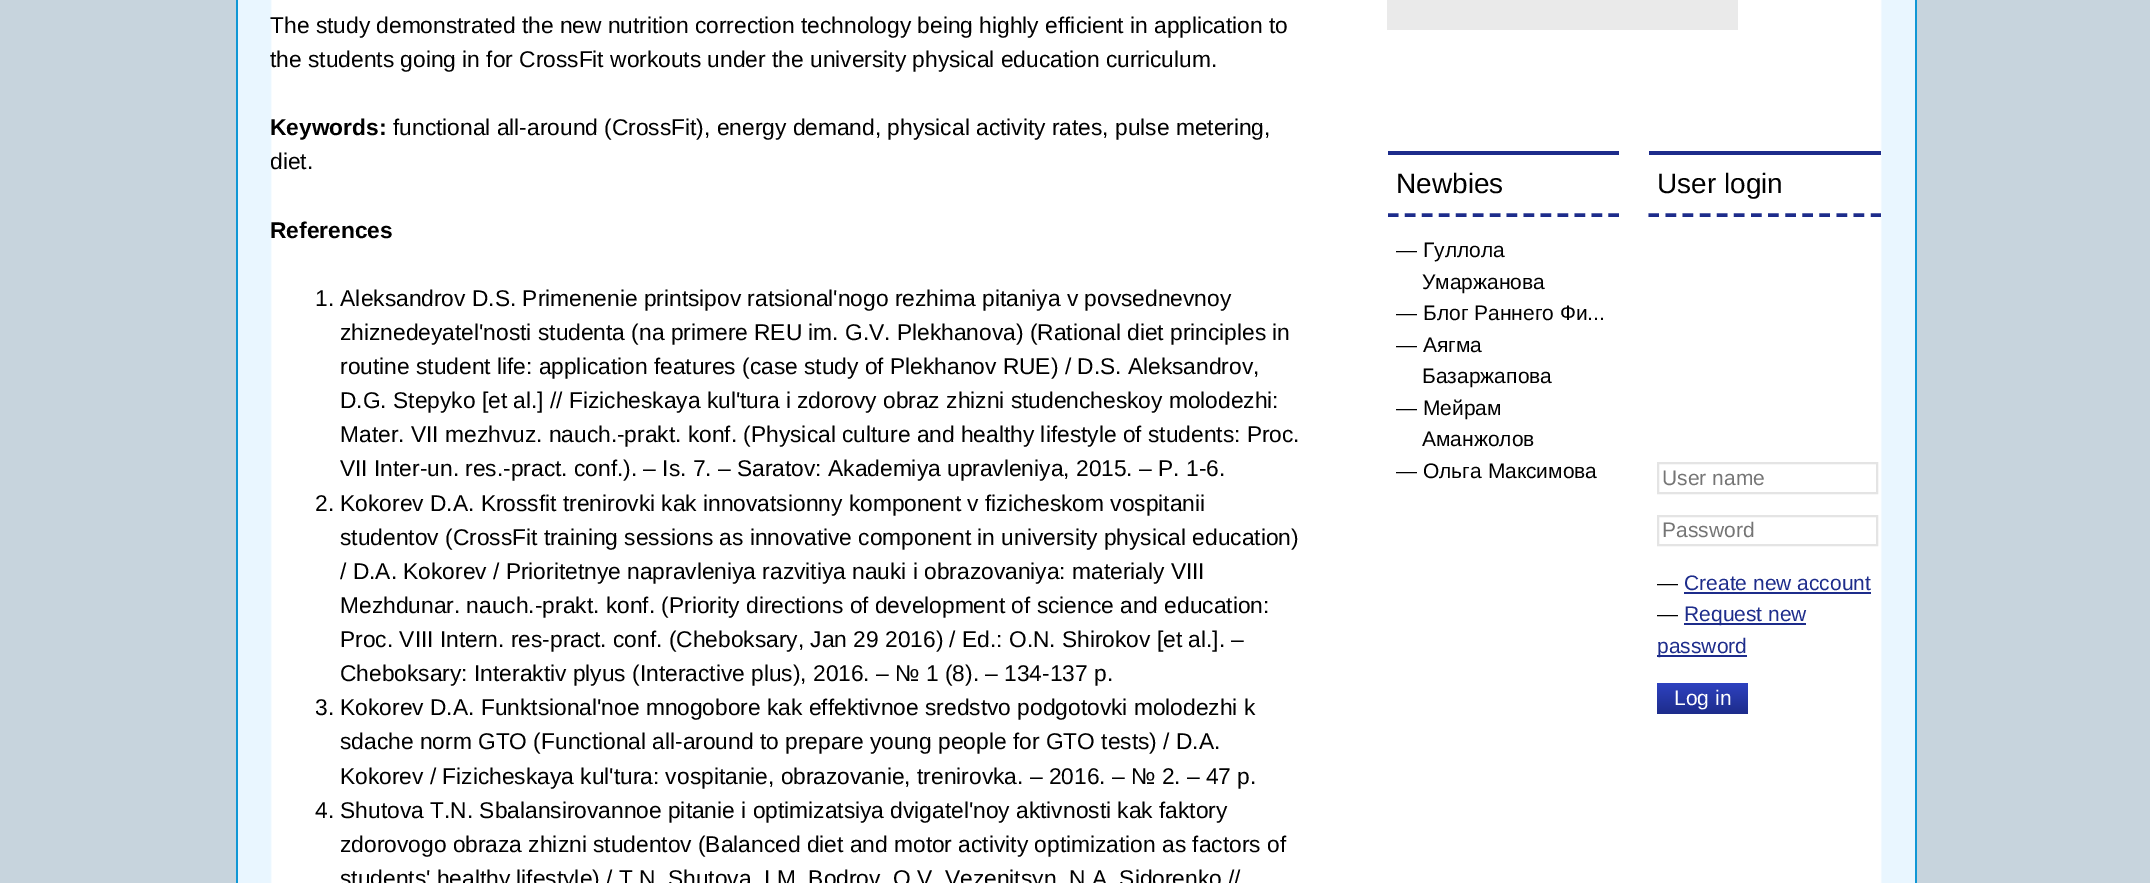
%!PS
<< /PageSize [2150 883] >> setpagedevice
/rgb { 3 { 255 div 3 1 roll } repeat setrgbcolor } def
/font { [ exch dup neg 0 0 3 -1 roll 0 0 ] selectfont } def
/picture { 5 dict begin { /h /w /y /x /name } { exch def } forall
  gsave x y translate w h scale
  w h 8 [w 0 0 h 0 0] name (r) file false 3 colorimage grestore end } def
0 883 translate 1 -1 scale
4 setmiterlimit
199 212 221 rgb
0 0 2150 883 rectfill
(img/1.rgb) 238 0 1677 883 picture
[
  [1915 0 2 883 16 151 213]
  [236 0 2 883 16 151 213]
  [1387 0 351 30 234 234 234]
  [1388 151 231 4 29 44 139]
] { aload pop rgb rectfill } forall
3.5 setlinewidth
[10.5 6.46] 0 setdash
1388 215 moveto 1619 215 lineto stroke
1649 151 232 4 rectfill
[10.5 6.6] 0 setdash
1648.5 215 moveto 1881 215 lineto stroke
228 228 228 rgb
2 setlinewidth
[] 0 setdash
1658 463 219 30 rectstroke
1658 516 219 29 rectstroke
[
  [1684 592 187 2 29 44 139]
  [1684 623 122 2 29 44 139]
  [1657 655 90 2 29 44 139]
] { aload pop rgb rectfill } forall
gsave 1657 683 moveto 1748 683 lineto 1748 714 lineto 1657 714 lineto closepath clip newpath
<< /ShadingType 2 /ColorSpace /DeviceRGB /Coords [1703 683 1703 714] /Extend [true true] /Function << /FunctionType 2 /Domain [0 1] /C0 [0.18 0.259 0.753] /C1 [0.114 0.173 0.545] /N 1 >> >> shfill grestore
/LiberationSans-Regular 22.75 font
0 0 0 rgb
270 33 moveto (The study demonstrated the new nutrition correction technology being highly efficient in application to) show
270 67 moveto (the students going in for CrossFit workouts under the university physical education curriculum.) show
/LiberationSans-Bold 22.75 font
270 135 moveto (Keywords:) show
/LiberationSans-Regular 22.75 font
393 135 moveto (functional all-around \(CrossFit\), energy demand, physical activity rates, pulse metering,) show
270 169 moveto (diet.) show
/LiberationSans-Bold 22.75 font
270 238 moveto (References) show
/LiberationSans-Regular 22.75 font
[
  [(1. Aleksandrov D.S. Primenenie printsipov ratsional'nogo rezhima pitaniya v povsednevnoy) 315 306]
  [(zhiznedeyatel'nosti studenta \(na primere REU im. G.V. Plekhanova\) \(Rational diet principles in) 340 340]
  [(routine student life: application features \(case study of Plekhanov RUE\) / D.S. Aleksandrov,) 340 374]
  [(D.G. Stepyko [et al.] // Fizicheskaya kul'tura i zdorovy obraz zhizni studencheskoy molodezhi:) 340 408]
  [(Mater. VII mezhvuz. nauch.-prakt. konf. \(Physical culture and healthy lifestyle of students: Proc.) 340 442]
  [(VII Inter-un. res.-pract. conf.\). – Is. 7. – Saratov: Akademiya upravleniya, 2015. – P. 1-6.) 340 476]
  [(2. Kokorev D.A. Krossfit trenirovki kak innovatsionny komponent v fizicheskom vospitanii) 315 511]
  [(studentov \(CrossFit training sessions as innovative component in university physical education\)) 340 545]
  [(/ D.A. Kokorev / Prioritetnye napravleniya razvitiya nauki i obrazovaniya: materialy VIII) 340 579]
  [(Mezhdunar. nauch.-prakt. konf. \(Priority directions of development of science and education:) 340 613]
  [(Proc. VIII Intern. res-pract. conf. \(Cheboksary, Jan 29 2016\) / Ed.: O.N. Shirokov [et al.]. –) 340 647]
  [(Cheboksary: Interaktiv plyus \(Interactive plus\), 2016. – № 1 \(8\). – 134-137 p.) 340 681]
  [(3. Kokorev D.A. Funktsional'noe mnogobore kak effektivnoe sredstvo podgotovki molodezhi k) 315 715]
  [(sdache norm GTO \(Functional all-around to prepare young people for GTO tests\) / D.A.) 340 749]
  [(Kokorev / Fizicheskaya kul'tura: vospitanie, obrazovanie, trenirovka. – 2016. – № 2. – 47 p.) 340 784]
  [(4. Shutova T.N. Sbalansirovannoe pitanie i optimizatsiya dvigatel'noy aktivnosti kak faktory) 315 818]
  [(zdorovogo obraza zhizni studentov \(Balanced diet and motor activity optimization as factors of) 340 852]
  [(students' healthy lifestyle\) / T.N. Shutova, I.M. Bodrov, O.V. Vezenitsyn, N.A. Sidorenko //) 340 886]
] { aload pop moveto show } forall
/LiberationSans-Regular 28 font
1396 193 moveto (Newbies) show
/LiberationSans-Regular 21 font
[
  [(— Гуллола) 1396 257]
  [(Умаржанова) 1422 289]
  [(— Блог Раннего Фи...) 1396 320]
  [(— Аягма) 1396 352]
  [(Базаржапова) 1422 383]
  [(— Мейрам) 1396 415]
  [(Аманжолов) 1422 446]
  [(— Ольга Максимова) 1396 478]
] { aload pop moveto show } forall
/LiberationSans-Regular 28 font
1657 193 moveto (User login) show
/LiberationSans-Regular 21 font
117 117 117 rgb
1662 485 moveto (User name) show
1662 537 moveto (Password) show
0 0 0 rgb
1657 590 moveto (—) show
29 44 139 rgb
1684 590 moveto (Create new account) show
0 0 0 rgb
1657 621 moveto (—) show
29 44 139 rgb
1684 621 moveto (Request new) show
1657 653 moveto (password) show
255 255 255 rgb
1674 705 moveto (Log in) show
showpage
